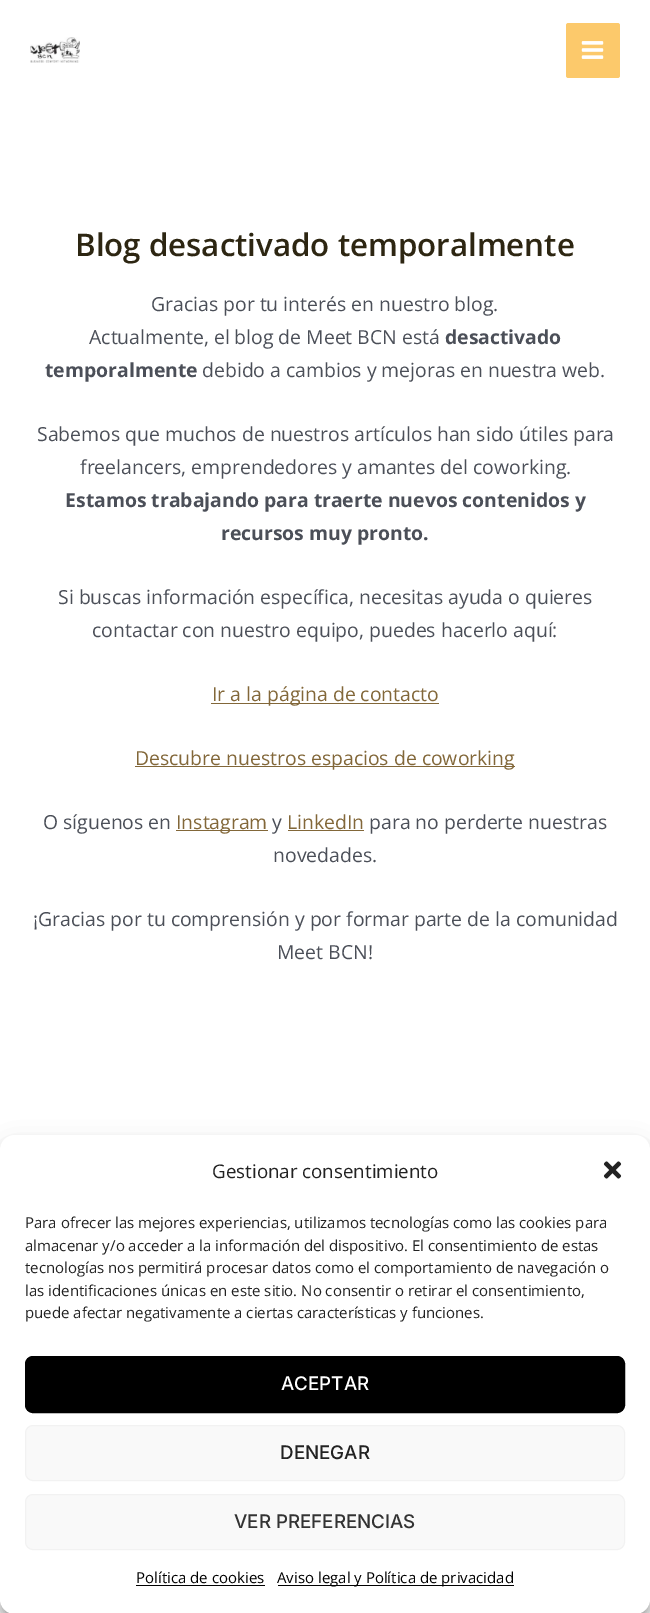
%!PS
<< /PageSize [650 1613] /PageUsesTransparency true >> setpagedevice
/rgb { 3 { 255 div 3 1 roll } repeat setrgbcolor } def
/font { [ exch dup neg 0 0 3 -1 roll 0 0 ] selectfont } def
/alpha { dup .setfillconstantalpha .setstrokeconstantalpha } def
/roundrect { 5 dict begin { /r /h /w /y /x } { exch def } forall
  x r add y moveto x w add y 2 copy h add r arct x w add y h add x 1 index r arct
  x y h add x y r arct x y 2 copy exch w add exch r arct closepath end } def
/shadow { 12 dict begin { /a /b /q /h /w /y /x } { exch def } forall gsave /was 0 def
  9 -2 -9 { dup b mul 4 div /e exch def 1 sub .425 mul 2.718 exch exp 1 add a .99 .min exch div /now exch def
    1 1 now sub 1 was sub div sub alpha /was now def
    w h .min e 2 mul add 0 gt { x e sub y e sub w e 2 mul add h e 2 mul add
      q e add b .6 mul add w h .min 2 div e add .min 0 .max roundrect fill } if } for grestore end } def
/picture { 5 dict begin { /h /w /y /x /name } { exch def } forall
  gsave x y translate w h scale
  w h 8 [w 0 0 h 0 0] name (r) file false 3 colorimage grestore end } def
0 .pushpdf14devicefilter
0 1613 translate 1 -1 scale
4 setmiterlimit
255 255 255 rgb
0 0 650 1613 rectfill
(img/1.rgb) 30 37 50 26 picture
252 201 107 rgb
566 23 54 55 2.5 roundrect fill
(img/2.rgb) 581 41 23 18 picture
[
  [211 703 228 1 130 103 57]
  [135 766 380 1 130 103 57]
  [176 830 92 1 130 103 57]
  [288 830 76 1 130 103 57]
] { aload pop rgb rectfill } forall
0 0 0 rgb
0 1143 650 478 15 4 0.23 shadow
0 1148 650 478 15 12.5 0.19 shadow
255 255 255 rgb
0 1135 650 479 15 roundrect fill
(img/3.rgb) 603 1161 19 18 picture
0 0 0 rgb
25.5 1356.5 599 56 7.5 roundrect gsave fill grestore
stroke
249 249 249 rgb
25.5 1425.5 599 55 7.5 roundrect gsave fill grestore
242 242 242 rgb
stroke
249 249 249 rgb
25.5 1494.5 599 55 7.5 roundrect gsave fill grestore
242 242 242 rgb
stroke
0 0 0 rgb
136 1585 129 1 rectfill
278 1585 236 1 rectfill
/OpenSans-SemiBold 31.25 font
45 38 18 rgb
75 256 moveto (Blog desactivado temporalmente) show
/OpenSans-Regular 19.4 font
75 79 88 rgb
151 311 moveto (Gracias por tu interés en nuestro blog.) show
89 344 moveto (Actualmente, el blog de Meet BCN está) show
/OpenSans-Bold 19.4 font
445 344 moveto (desactivado) show
45 377 moveto (temporalmente) show
/OpenSans-Regular 19.4 font
[
  [(debido a cambios y mejoras en nuestra web.) 202 377]
  [(Sabemos que muchos de nuestros artículos han sido útiles para) 37 441]
  [(freelancers, emprendedores y amantes del coworking.) 80 474]
] { aload pop moveto show } forall
/OpenSans-Bold 19.4 font
65 507 moveto (Estamos trabajando para traerte nuevos contenidos y) show
221 540 moveto (recursos muy pronto.) show
/OpenSans-Regular 19.4 font
58 604 moveto (Si buscas información específica, necesitas ayuda o quieres) show
92 637 moveto (contactar con nuestro equipo, puedes hacerlo aquí:) show
130 103 57 rgb
212 701 moveto (Ir a la página de contacto) show
135 765 moveto (Descubre nuestros espacios de coworking) show
75 79 88 rgb
43 829 moveto (O síguenos en) show
130 103 57 rgb
176 829 moveto (Instagram) show
75 79 88 rgb
272 829 moveto (y) show
130 103 57 rgb
287 829 moveto (LinkedIn) show
75 79 88 rgb
[
  [(para no perderte nuestras) 369 829]
  [(novedades.) 273 862]
  [(¡Gracias por tu comprensión y por formar parte de la comunidad) 33 926]
  [(Meet BCN!) 277 959]
] { aload pop moveto show } forall
/OpenSans-Regular 18.75 font
34 34 34 rgb
212 1178 moveto (Gestionar consentimiento) show
/OpenSans-Regular 15 font
[
  [(Para ofrecer las mejores experiencias, utilizamos tecnologías como las cookies para) 25 1228]
  [(almacenar y/o acceder a la información del dispositivo. El consentimiento de estas) 25 1251]
  [(tecnologías nos permitirá procesar datos como el comportamiento de navegación o) 25 1273]
  [(las identificaciones únicas en este sitio. No consentir o retirar el consentimiento,) 25 1296]
  [(puede afectar negativamente a ciertas características y funciones.) 25 1318]
] { aload pop moveto show } forall
/Inter-Medium 18.75 font
255 255 255 rgb
281 1390 moveto (ACEPTAR) show
34 34 34 rgb
280 1459 moveto (DENEGAR) show
51 51 51 rgb
234 1528 moveto (VER PREFERENCIAS) show
/OpenSans-Regular 15 font
0 0 0 rgb
136 1583 moveto (Política de cookies) show
277 1583 moveto (Aviso legal y Política de privacidad) show
.poppdf14devicefilter showpage
